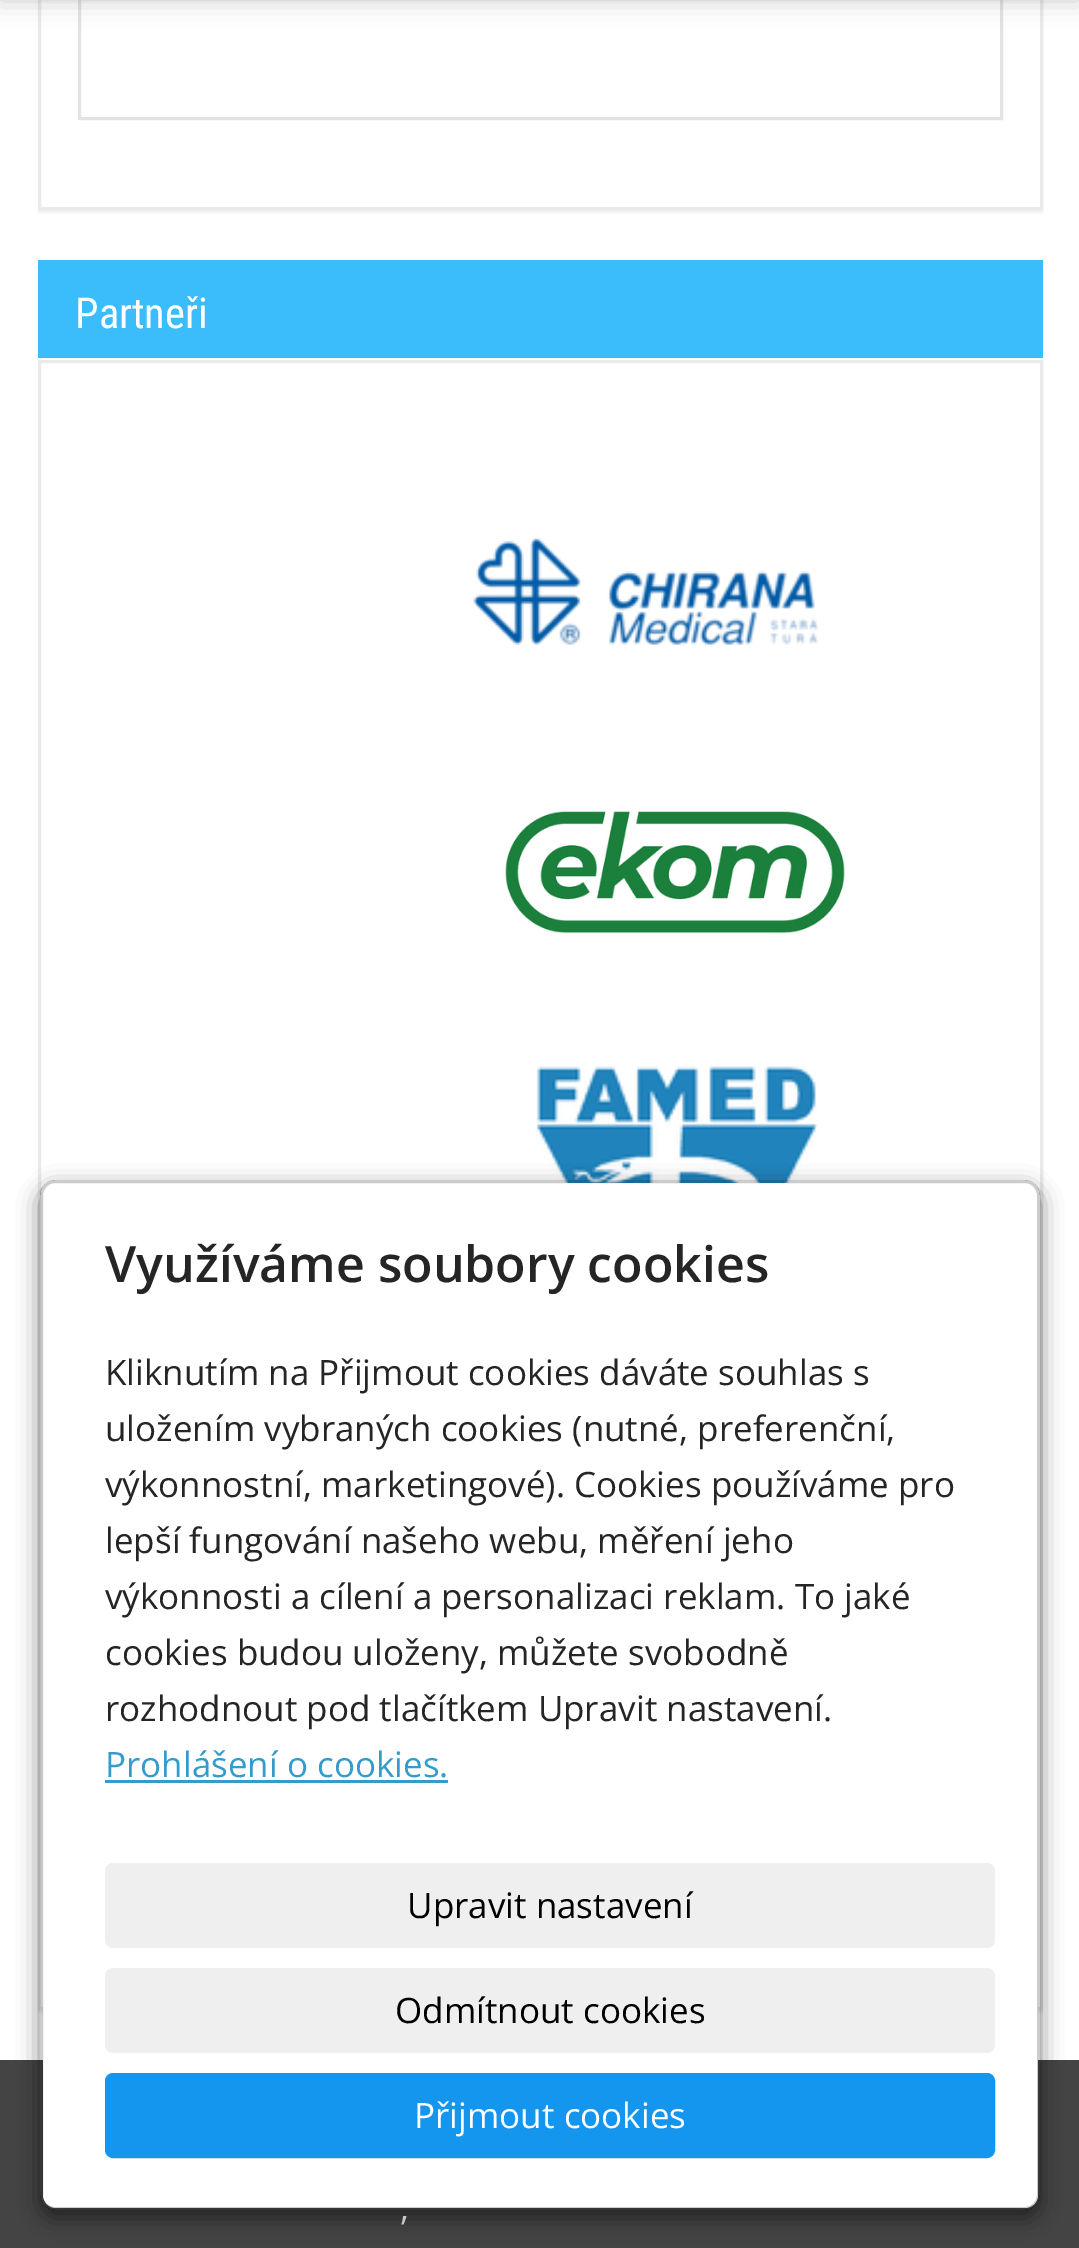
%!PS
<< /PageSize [1079 2248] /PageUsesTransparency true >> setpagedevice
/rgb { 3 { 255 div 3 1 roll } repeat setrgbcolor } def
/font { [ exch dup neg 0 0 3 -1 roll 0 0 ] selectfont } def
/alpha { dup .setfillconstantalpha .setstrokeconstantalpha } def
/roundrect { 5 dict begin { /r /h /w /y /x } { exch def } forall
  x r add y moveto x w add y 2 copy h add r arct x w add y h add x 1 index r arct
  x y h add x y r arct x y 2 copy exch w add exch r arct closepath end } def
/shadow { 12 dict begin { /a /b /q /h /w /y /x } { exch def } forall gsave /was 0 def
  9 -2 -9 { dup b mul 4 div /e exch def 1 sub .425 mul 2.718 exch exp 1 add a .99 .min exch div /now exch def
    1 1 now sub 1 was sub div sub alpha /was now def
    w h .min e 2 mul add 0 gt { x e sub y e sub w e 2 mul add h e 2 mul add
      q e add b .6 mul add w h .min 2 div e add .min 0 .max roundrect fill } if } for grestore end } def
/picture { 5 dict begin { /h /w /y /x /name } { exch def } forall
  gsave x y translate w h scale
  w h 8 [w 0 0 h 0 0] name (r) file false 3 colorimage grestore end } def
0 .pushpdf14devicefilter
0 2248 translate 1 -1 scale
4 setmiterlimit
255 255 255 rgb
0 0 1079 2248 rectfill
0 0 0 rgb
38 -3 1005 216 0 1 0.05 shadow
255 255 255 rgb
39.5 -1.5 moveto 1041.5 -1.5 lineto 1041.5 208.5 lineto 39.5 208.5 lineto closepath gsave fill grestore
234 234 234 rgb
3 setlinewidth
stroke
227 227 227 rgb
79.5 -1.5 922 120 rectstroke
0 0 0 rgb
0 -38 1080 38 0 12.5 0.2 shadow
38 263 1005 1750 0 1 0.05 shadow
59 189 251 rgb
38 260 1005 98 rectfill
255 255 255 rgb
38 358 1005 2 rectfill
39.5 361.5 moveto 1041.5 361.5 lineto 1041.5 2008.5 lineto 39.5 2008.5 lineto closepath gsave fill grestore
234 234 234 rgb
stroke
(img/1.rgb) 473 537 346 108 picture
(img/2.rgb) 505 811 340 123 picture
(img/3.rgb) 536 1066 282 117 picture
68 68 68 rgb
0 2060 1079 188 rectfill
gsave
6 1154 moveto 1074 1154 lineto 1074 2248 lineto 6 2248 lineto closepath 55 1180 moveto 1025 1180 lineto 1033.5 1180 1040 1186.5 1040 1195 curveto 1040 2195 lineto 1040 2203.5 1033.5 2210 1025 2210 curveto 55 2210 lineto 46.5 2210 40 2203.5 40 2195 curveto 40 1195 lineto 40 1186.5 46.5 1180 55 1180 curveto closepath eoclip newpath
0 0 0 rgb
40 1188 1000 1030 15 11 0.5 shadow
grestore
255 255 255 rgb
43 1183 995 1025 13 roundrect fill
0.2 alpha
0 0 0 rgb
41.5 1181.5 997 1027 13.5 roundrect stroke
1 alpha
52 156 205 rgb
105 1780 343 3 rectfill
239 239 239 rgb
105 1863 890 85 8 roundrect fill
105 1968 890 85 8 roundrect fill
20 150 238 rgb
106.5 2074.5 887 82 6.5 roundrect gsave fill grestore
stroke
/RobotoCondensed-Regular 42.5 font
255 255 255 rgb
75 328 moveto (Partneři) show
/OpenSans-Regular 35 font
199 199 199 rgb
400 2220 moveto (,) show
/OpenSans-SemiBold 50 font
37 37 37 rgb
105 1282 moveto (Využíváme soubory cookies) show
/OpenSans-Regular 35 font
[
  [(Kliknutím na Přijmout cookies dáváte souhlas s) 105 1385]
  [(uložením vybraných cookies \(nutné, preferenční,) 105 1441]
  [(výkonnostní, marketingové\). Cookies používáme pro) 105 1497]
  [(lepší fungování našeho webu, měření jeho) 105 1553]
  [(výkonnosti a cílení a personalizaci reklam. To jaké) 105 1609]
  [(cookies budou uloženy, můžete svobodně) 105 1665]
  [(rozhodnout pod tlačítkem Upravit nastavení.) 105 1721]
] { aload pop moveto show } forall
52 156 205 rgb
105 1777 moveto (Prohlášení o cookies.) show
0 0 0 rgb
407 1918 moveto (Upravit nastavení) show
395 2023 moveto (Odmítnout cookies) show
255 255 255 rgb
414 2128 moveto (Přijmout cookies) show
.poppdf14devicefilter showpage
